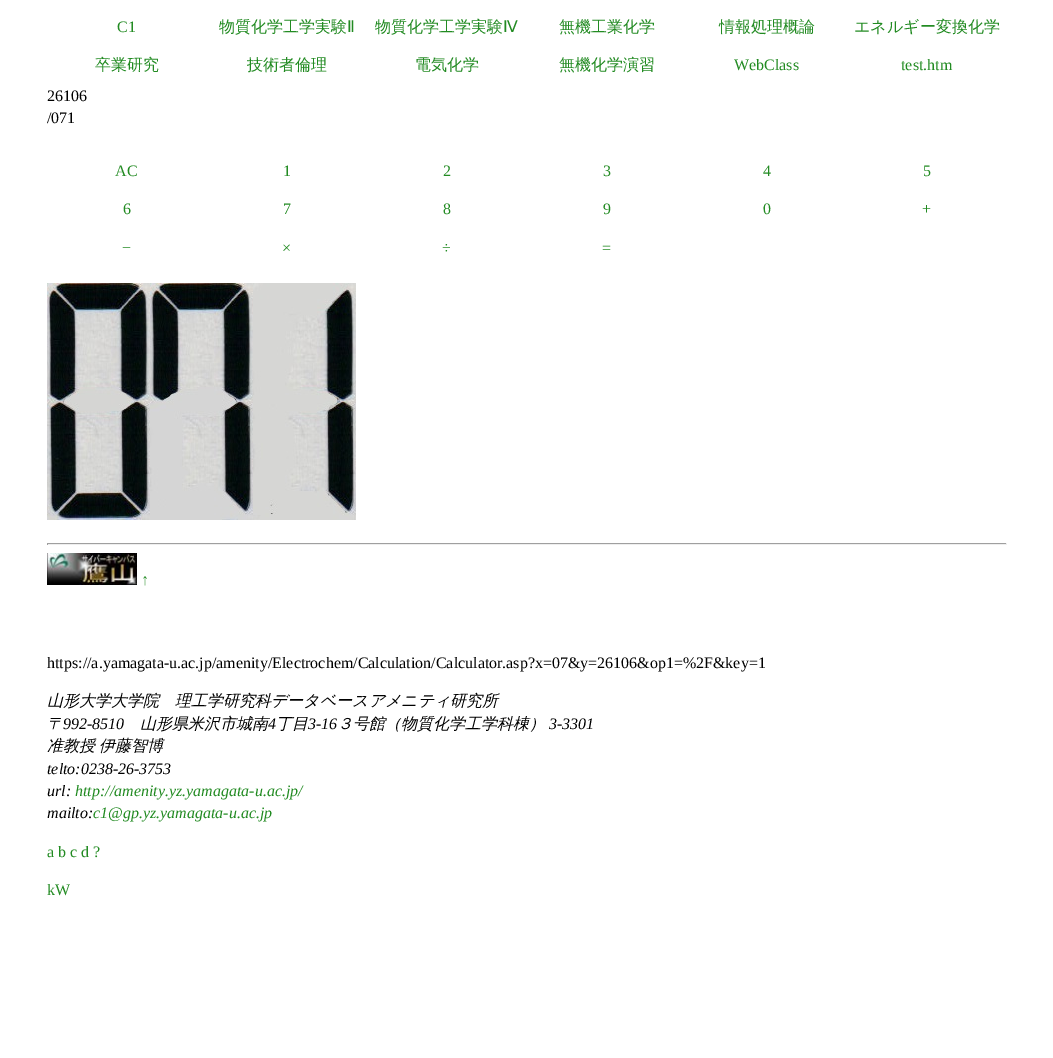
%!PS
<< /PageSize [1053 1058] >> setpagedevice
/rgb { 3 { 255 div 3 1 roll } repeat setrgbcolor } def
/font { [ exch dup neg 0 0 3 -1 roll 0 0 ] selectfont } def
/picture { 5 dict begin { /h /w /y /x /name } { exch def } forall
  gsave x y translate w h scale
  w h 8 [w 0 0 h 0 0] name (r) file false 3 colorimage grestore end } def
0 1058 translate 1 -1 scale
4 setmiterlimit
255 255 255 rgb
0 0 1053 1058 rectfill
(img/1.rgb) 47 283 103 237 picture
(img/2.rgb) 150 283 103 237 picture
(img/3.rgb) 253 283 103 237 picture
[
  [47 543 960 1 159 159 159]
  [1006 543 1 2 238 238 238]
  [47 544 960 1 238 238 238]
  [47 543 1 2 159 159 159]
] { aload pop rgb rectfill } forall
(img/4.rgb) 47 553 90 32 picture
/LiberationSerif-Regular 16 font
34 139 34 rgb
117 32 moveto (C1) show
/WenQuanYiZenHei-Medium 16 font
219 32 moveto (物質化学工学実験) show
/DejaVuSans-Regular 16 font
347 32 moveto (Ⅱ) show
/WenQuanYiZenHei-Medium 16 font
375 32 moveto (物質化学工学実験) show
/DejaVuSans-Regular 16 font
503 32 moveto (Ⅳ) show
/WenQuanYiZenHei-Medium 16 font
[
  [(無機工業化学) 559 32]
  [(情報処理概論) 719 32]
  [(エネルギー変換化学) 854 32]
  [(卒業研究) 95 70]
  [(技術者倫理) 247 70]
  [(電気化学) 415 70]
  [(無機化学演習) 559 70]
] { aload pop moveto show } forall
/LiberationSerif-Regular 16 font
734 70 moveto (WebClass) show
901 70 moveto (test.htm) show
0 0 0 rgb
47 101 moveto (26106) show
47 123 moveto (/071) show
34 139 34 rgb
[
  [(AC) 115 176]
  [(1) 283 176]
  [(2) 443 176]
  [(3) 603 176]
  [(4) 763 176]
  [(5) 923 176]
  [(6) 123 214]
  [(7) 283 214]
  [(8) 443 214]
  [(9) 603 214]
  [(0) 763 214]
  [(+) 922 214]
  [(−) 122 253]
  [(×) 282 253]
  [(÷) 442 253]
  [(=) 602 253]
  [(↑) 141 585]
] { aload pop moveto show } forall
0 0 0 rgb
47 668 moveto (https://a.yamagata-u.ac.jp/amenity/Electrochem/Calculation/Calculator.asp?x=07&y=26106&op1=%2F&key=1) show
/WenQuanYiZenHei-MediumItalic 16 font
47 706 moveto (山形大学大学院　理工学研究科データベースアメニティ研究所) show
47 729 moveto (〒) show
/LiberationSerif-Italic 16 font
63 729 moveto (992-8510) show
/WenQuanYiZenHei-MediumItalic 16 font
140 729 moveto (山形県米沢市城南) show
/LiberationSerif-Italic 16 font
268 729 moveto (4) show
/WenQuanYiZenHei-MediumItalic 16 font
276 729 moveto (丁目) show
/LiberationSerif-Italic 16 font
308 729 moveto (3-16) show
/WenQuanYiZenHei-MediumItalic 16 font
337 729 moveto (３号館（物質化学工学科棟）) show
/LiberationSerif-Italic 16 font
549 729 moveto (3-3301) show
/WenQuanYiZenHei-MediumItalic 16 font
47 751 moveto -1 0 32 (准教授 伊藤智博) widthshow
/LiberationSerif-Italic 16 font
47 774 moveto (telto:0238-26-3753) show
47 796 moveto (url:) show
34 139 34 rgb
75 796 moveto (http://amenity.yz.yamagata-u.ac.jp/) show
0 0 0 rgb
47 818 moveto (mailto:) show
34 139 34 rgb
93 818 moveto (c1@gp.yz.yamagata-u.ac.jp) show
/LiberationSerif-Regular 16 font
47 857 moveto (a b c d ?) show
47 895 moveto (kW) show
showpage
